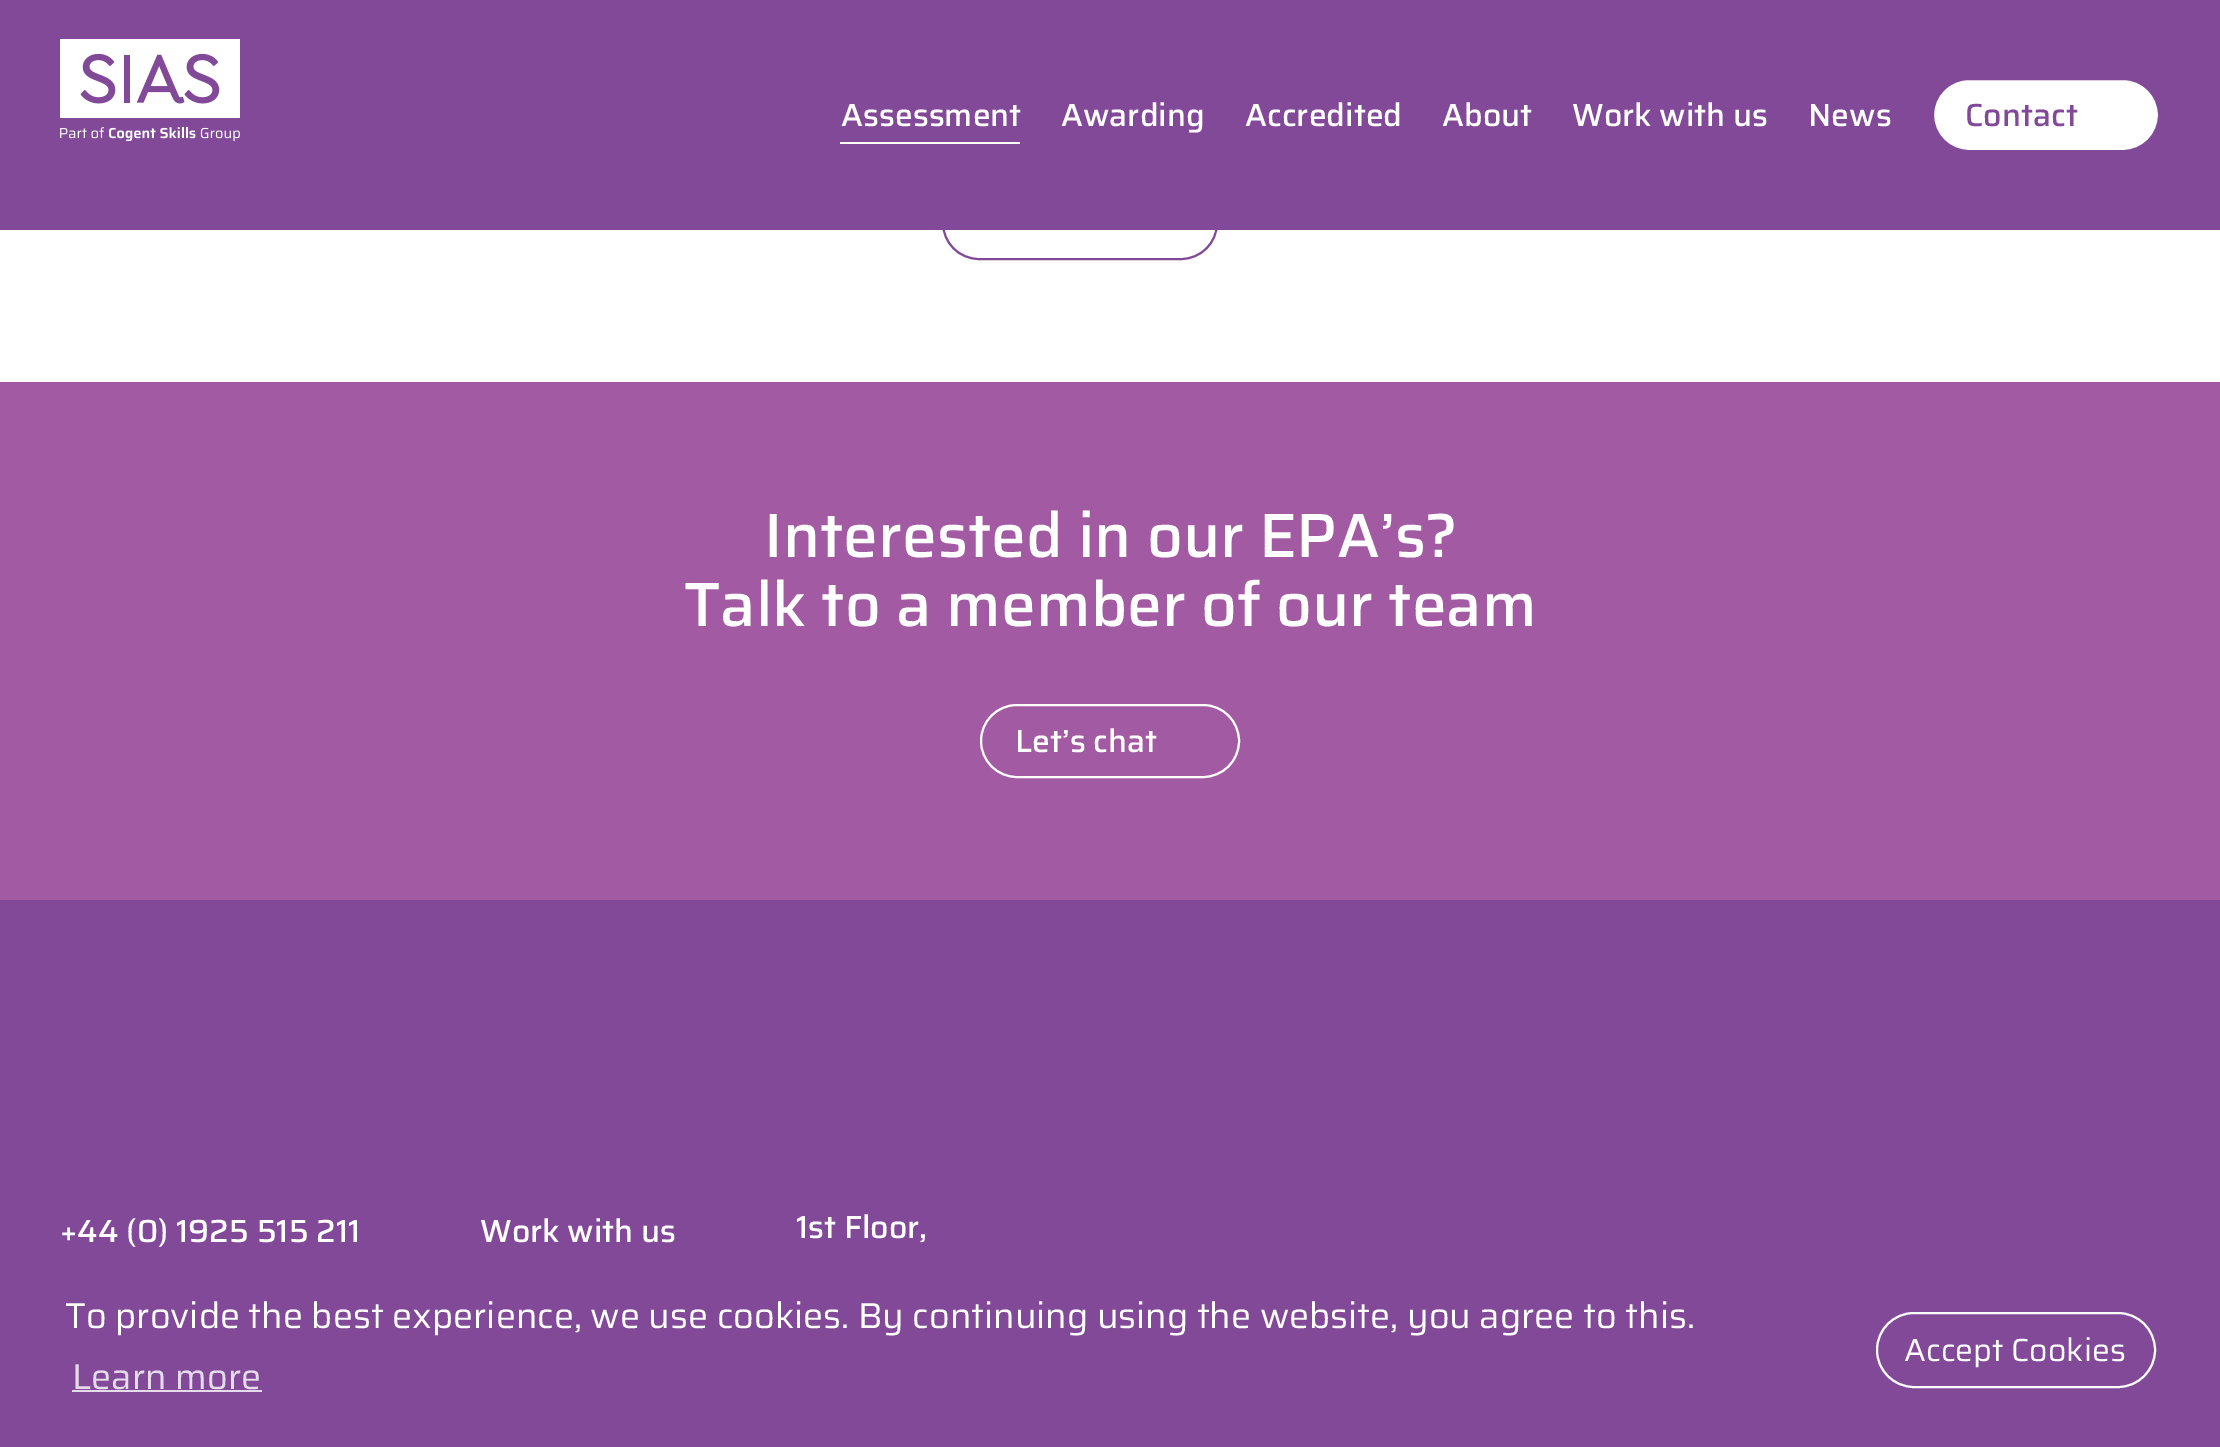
%!PS
<< /PageSize [2220 1447] >> setpagedevice
/rgb { 3 { 255 div 3 1 roll } repeat setrgbcolor } def
/font { [ exch dup neg 0 0 3 -1 roll 0 0 ] selectfont } def
/roundrect { 5 dict begin { /r /h /w /y /x } { exch def } forall
  x r add y moveto x w add y 2 copy h add r arct x w add y h add x 1 index r arct
  x y h add x y r arct x y 2 copy exch w add exch r arct closepath end } def
/picture { 5 dict begin { /h /w /y /x /name } { exch def } forall
  gsave x y translate w h scale
  w h 8 [w 0 0 h 0 0] name (r) file false 3 colorimage grestore end } def
0 1447 translate 1 -1 scale
4 setmiterlimit
255 255 255 rgb
0 0 2220 1447 rectfill
129 73 151 rgb
2 setlinewidth
943 187 274 72 36 roundrect stroke
0 0 2220 230 rectfill
(img/1.rgb) 60 39 180 103 picture
255 255 255 rgb
840 142 180 2 rectfill
1933 79 226 72 36 roundrect gsave fill grestore
129 73 151 rgb
stroke
162 91 163 rgb
0 382 2220 518 rectfill
255 255 255 rgb
981 705 258 72 36 roundrect stroke
129 73 151 rgb
0 900 2220 547 rectfill
230 219 234 rgb
72 1390 190 2 rectfill
255 255 255 rgb
1877 1313 278 74 37 roundrect stroke
/Saira-Medium 32 font
[
  [(Assessment) 841 126]
  [(Awarding) 1061 126]
  [(Accredited) 1245 126]
  [(About) 1442 126]
  [(Work with us) 1572 126]
  [(News) 1808 126]
] { aload pop moveto show } forall
129 73 151 rgb
1965 126 moveto (Contact) show
/Saira-Medium 62.5 font
255 255 255 rgb
764 557 moveto (Interested in our EPA’s?) show
684 626 moveto (Talk to a member of our team) show
/Saira-Medium 32 font
[
  [(Let’s chat) 1015 752]
  [(+44 \(0\) 1925 515 211) 60 1242]
  [(Work with us) 480 1242]
  [(1st Floor,) 796 1238]
] { aload pop moveto show } forall
/Saira-Regular 36 font
65 1328 moveto (To provide the best experience, we use cookies. By continuing using the website, you agree to this.) show
230 219 234 rgb
72 1389 moveto (Learn more) show
/Saira-Regular 32 font
255 255 255 rgb
1904 1361 moveto (Accept Cookies) show
showpage
